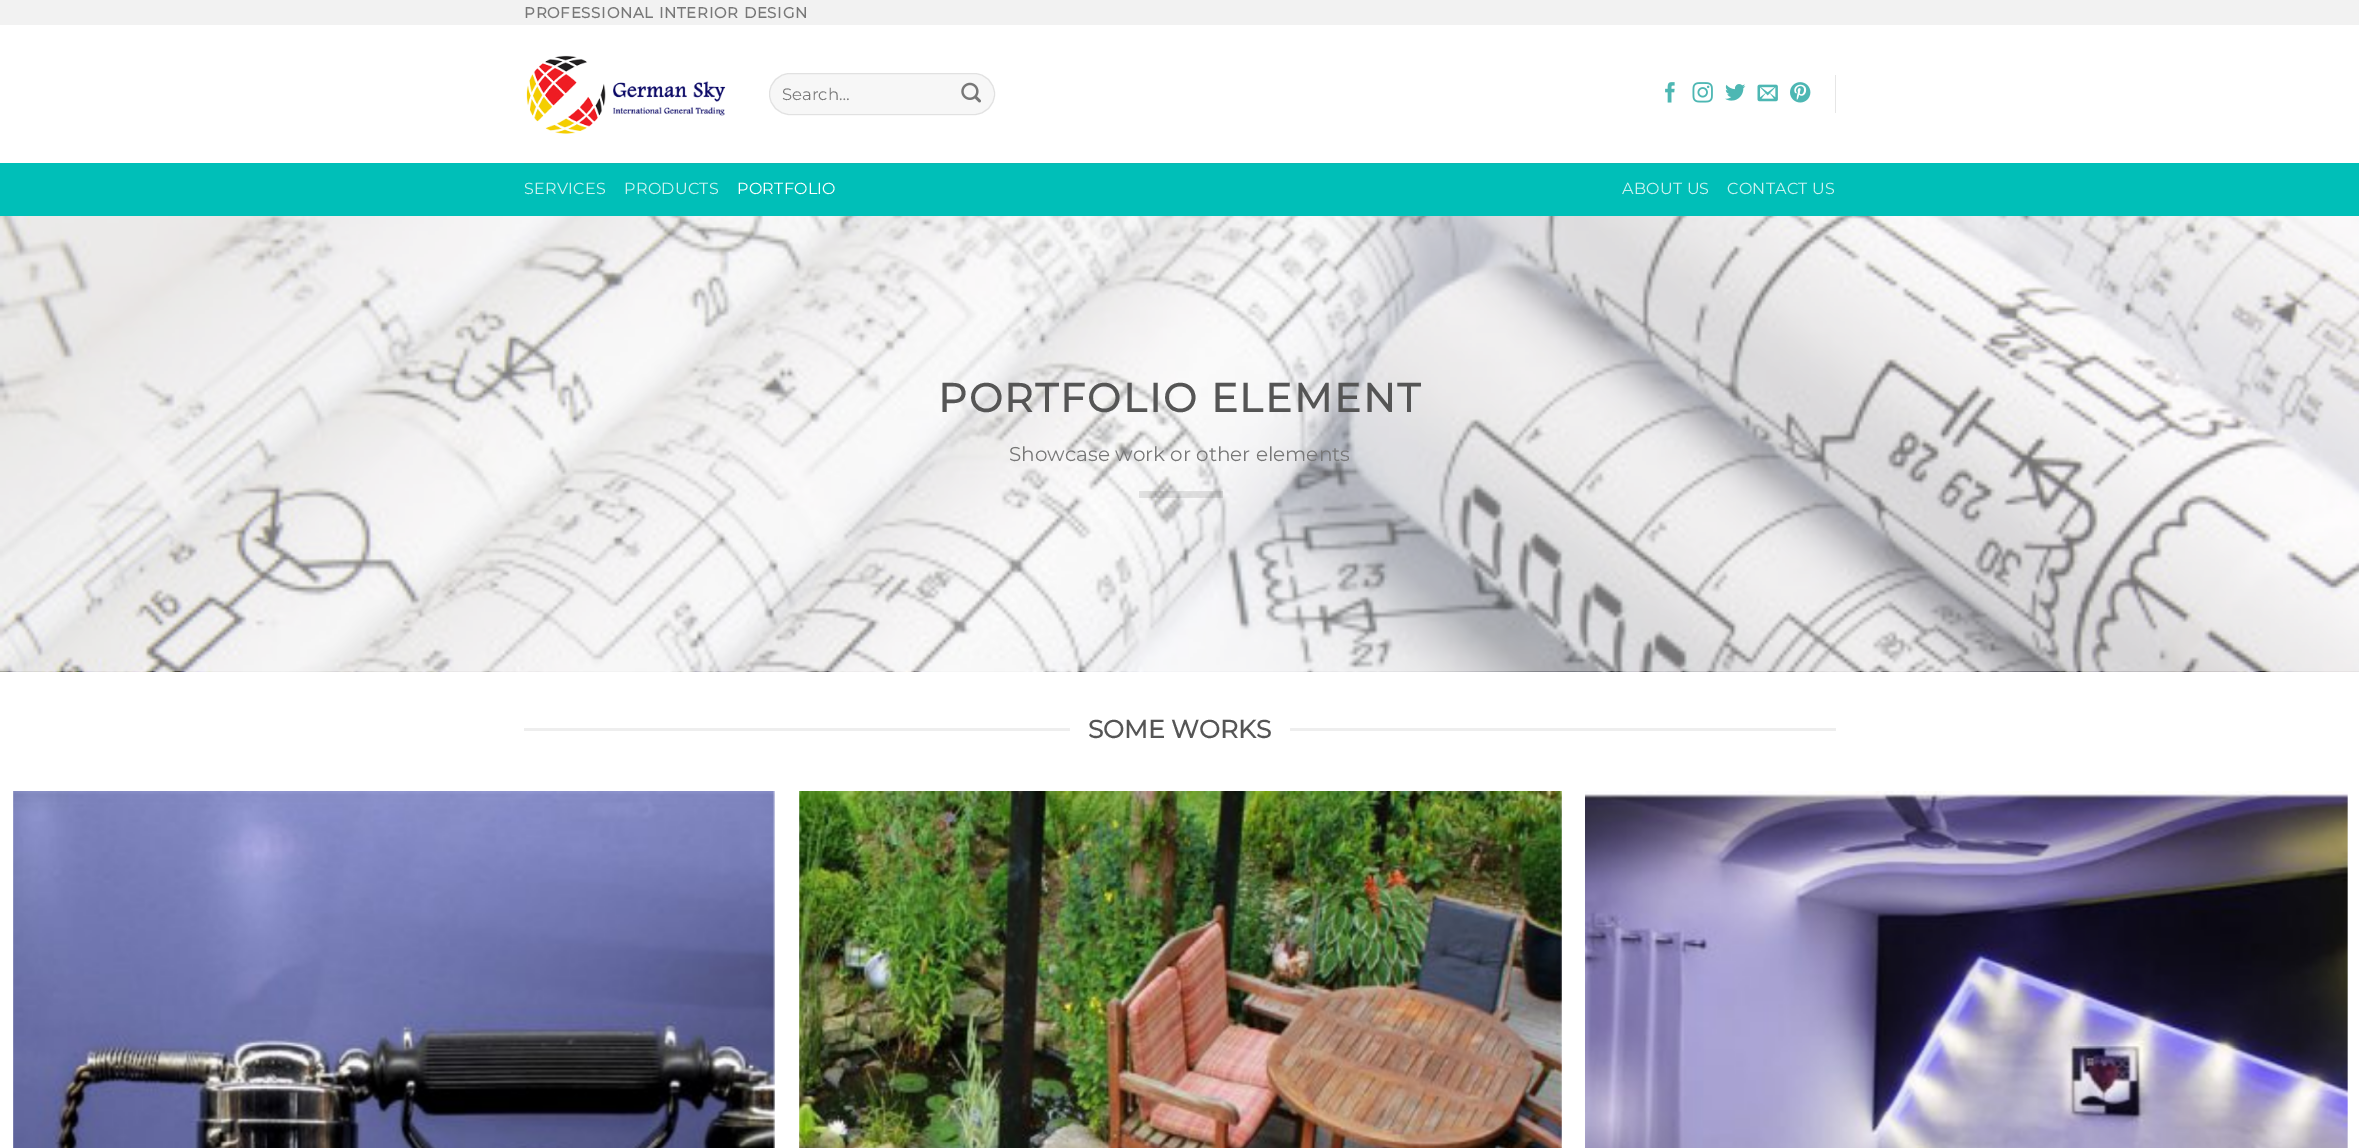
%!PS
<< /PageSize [2359 1148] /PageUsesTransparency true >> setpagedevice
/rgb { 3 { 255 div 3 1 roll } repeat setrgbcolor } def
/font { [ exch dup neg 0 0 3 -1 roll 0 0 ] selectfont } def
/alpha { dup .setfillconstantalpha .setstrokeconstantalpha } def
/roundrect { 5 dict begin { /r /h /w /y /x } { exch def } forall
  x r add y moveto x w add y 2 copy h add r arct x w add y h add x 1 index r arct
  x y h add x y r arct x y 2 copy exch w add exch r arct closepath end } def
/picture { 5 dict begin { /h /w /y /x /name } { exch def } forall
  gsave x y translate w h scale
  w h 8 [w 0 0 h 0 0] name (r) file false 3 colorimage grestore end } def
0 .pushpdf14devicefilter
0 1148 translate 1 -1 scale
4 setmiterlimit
255 255 255 rgb
0 0 2359 1148 rectfill
242 242 242 rgb
0 0 2359 25 rectfill
(img/1.rgb) 526 55 200 79 picture
247 247 247 rgb
769 73 226 42 21 roundrect fill
0.09 alpha
0 0 0 rgb
769.5 73.5 225 41 20.5 roundrect stroke
1 alpha
(img/2.rgb) 961 82 20 21 picture
(img/3.rgb) 1665 82 10 21 picture
(img/4.rgb) 1692 82 21 21 picture
(img/5.rgb) 1725 84 21 17 picture
(img/6.rgb) 1757 84 21 18 picture
(img/7.rgb) 1790 82 21 21 picture
[
  [1835 75 1 38 230 230 230]
  [0 163 2359 53 0 191 184]
  [524 163 1312 1 12 184 177]
] { aload pop rgb rectfill } forall
(img/8.rgb) 0 216 2359 456 picture
0.1 alpha
[
  [1139 491 84 7 0 0 0]
] { aload pop rgb rectfill } forall
1 alpha
[
  [524 728 546 3 238 238 238]
  [1290 728 546 3 238 238 238]
] { aload pop rgb rectfill } forall
(img/9.rgb) 13 791 762 357 picture
(img/10.rgb) 799 791 763 357 picture
(img/11.rgb) 1585 791 763 357 picture
/Montserrat-Bold 15 font
119 119 119 rgb
524 18 moveto 0.75 0 (PROFESSIONAL INTERIOR DESIGN) ashow
/Montserrat-Thin 16.5 font
782 100 moveto (Search…) show
/Montserrat-Thin 16 font
204 242 241 rgb
524 194 moveto 0.25 0 (SERVICES) ashow
624 194 moveto 0.25 0 (PRODUCTS) ashow
255 255 255 rgb
737 194 moveto 0.25 0 (PORTFOLIO) ashow
204 242 241 rgb
1622 194 moveto 0.25 0 (ABOUT US) ashow
1727 194 moveto 0.25 0 (CONTACT US) ashow
/Montserrat-Bold 40 font
85 85 85 rgb
938 412 moveto 2 0 (PORTFOLIO ELEMENT) ashow
/Montserrat-Thin 20 font
119 119 119 rgb
1009 461 moveto (Showcase work or other elements) show
/Montserrat-Bold 25 font
85 85 85 rgb
1088 738 moveto (SOME WORKS) show
.poppdf14devicefilter showpage
